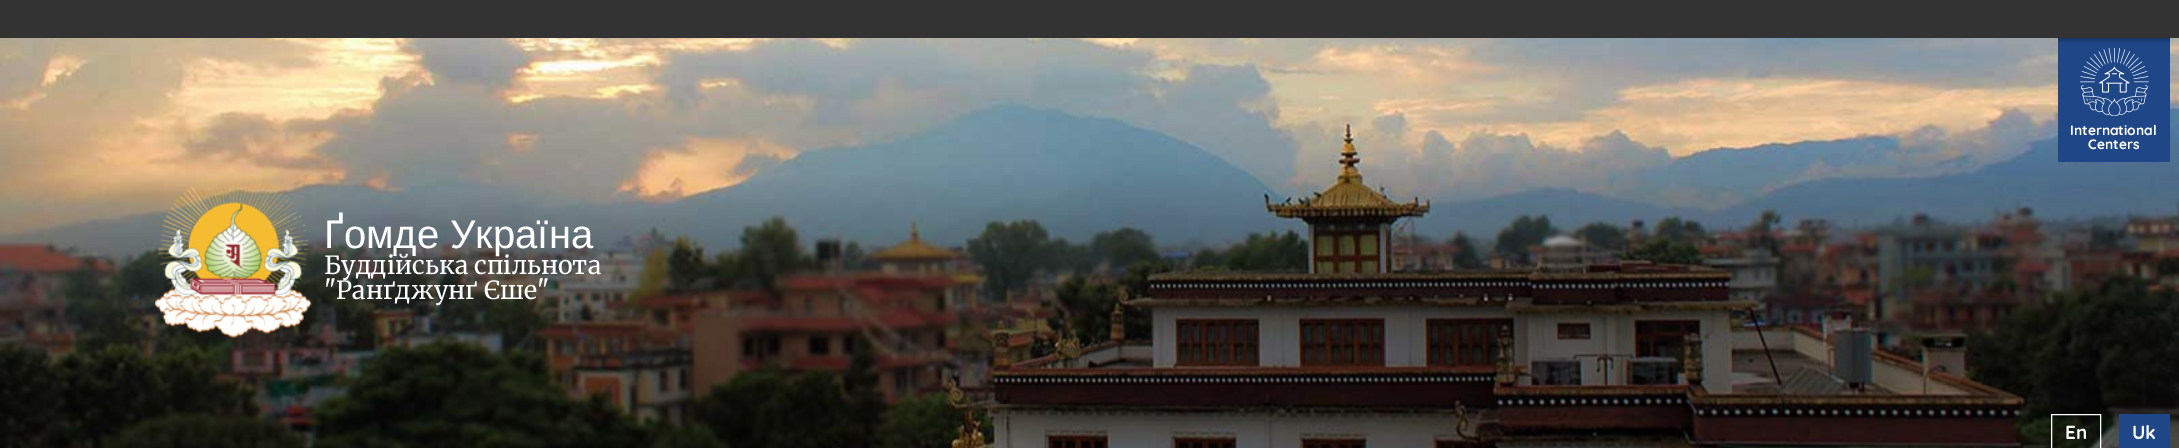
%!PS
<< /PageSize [2179 448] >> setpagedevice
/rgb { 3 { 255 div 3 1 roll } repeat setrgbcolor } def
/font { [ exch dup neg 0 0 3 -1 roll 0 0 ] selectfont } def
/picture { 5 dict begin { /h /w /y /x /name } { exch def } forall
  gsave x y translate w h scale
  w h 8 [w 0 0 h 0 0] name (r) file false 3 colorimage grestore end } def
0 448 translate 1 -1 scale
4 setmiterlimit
51 51 51 rgb
0 0 2179 448 rectfill
(img/1.rgb) 0 38 2179 410 picture
31 71 136 rgb
2058 55 112 107 rectfill
gsave 2058 38 moveto 2170 38 lineto 2170 55 lineto 2058 55 lineto closepath clip newpath
<< /ShadingType 2 /ColorSpace /DeviceRGB /Coords [2114 38 2114 44] /Extend [true true] /Function << /FunctionType 2 /Domain [0 1] /C0 [0.09 0.208 0.4] /C1 [0.122 0.278 0.533] /N 1 >> >> shfill grestore
(img/2.rgb) 2080 48 69 68 picture
(img/3.rgb) 155 173 157 165 picture
255 255 255 rgb
2051.5 414.5 49 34 rectstroke
31 71 136 rgb
2119 414 51 34 rectfill
/Quicksand-Bold 13.75 font
255 255 255 rgb
2070 135 moveto (International) show
2088 149 moveto (Centers) show
/LiberationSans-Regular 40 font
324 248 moveto (Ґомде Україна) show
/Merriweather-Regular 25 font
324 274 moveto (Буддійська спільнота) show
324 299 moveto ("Ранґджунґ Єше") show
/Quicksand-Bold 19 font
2065 439 moveto (En) show
2132 439 moveto (Uk) show
showpage
